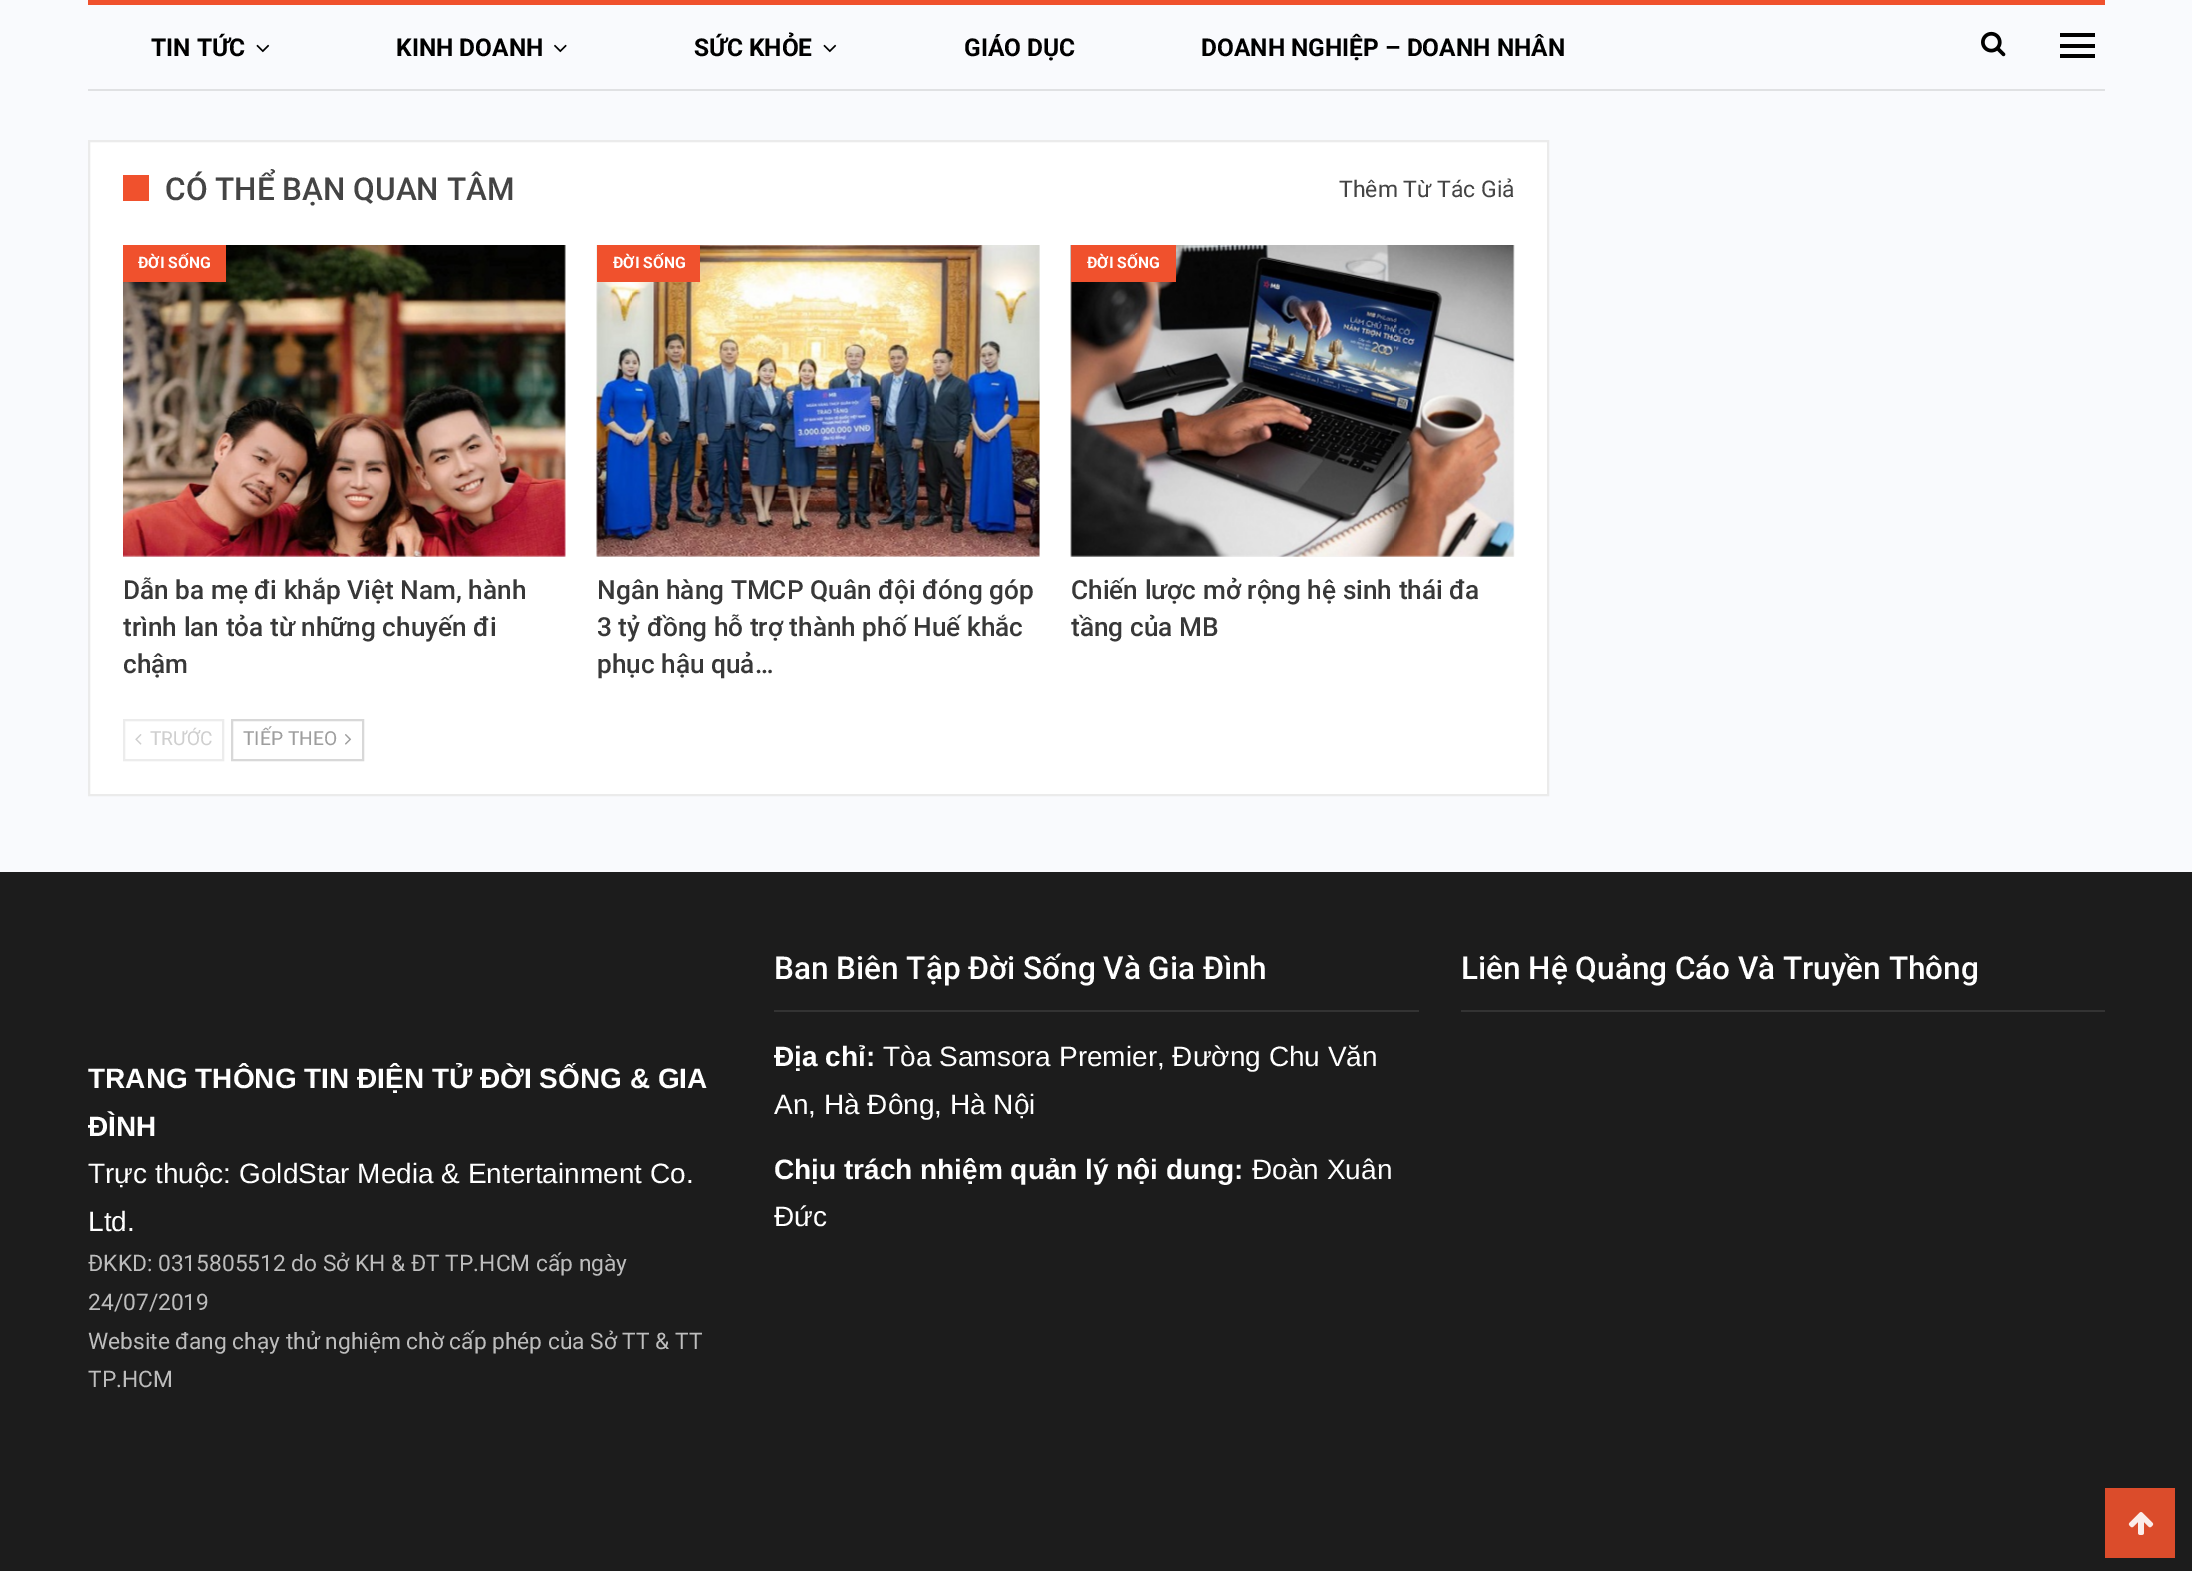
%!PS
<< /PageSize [2192 1571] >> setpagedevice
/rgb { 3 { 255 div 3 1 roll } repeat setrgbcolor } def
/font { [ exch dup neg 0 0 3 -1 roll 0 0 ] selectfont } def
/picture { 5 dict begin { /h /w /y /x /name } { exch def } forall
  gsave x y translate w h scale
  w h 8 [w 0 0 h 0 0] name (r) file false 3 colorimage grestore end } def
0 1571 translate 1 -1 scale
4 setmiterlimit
249 250 253 rgb
0 0 2192 1571 rectfill
240 81 45 rgb
88 0 2017 5 rectfill
224 225 227 rgb
88 89 2017 2 rectfill
(img/1.rgb) 256 44 14 9 picture
(img/2.rgb) 554 44 13 9 picture
(img/1.rgb) 823 44 14 9 picture
(img/3.rgb) 1981 31 25 26 picture
[
  [2060 44 35 4 0 0 0]
  [2060 33 35 4 0 0 0]
  [2060 54 35 4 0 0 0]
] { aload pop rgb rectfill } forall
255 255 255 rgb
89 141 moveto 1548 141 lineto 1548 795 lineto 89 795 lineto closepath gsave fill grestore
235 235 235 rgb
2 setlinewidth
stroke
240 81 45 rgb
123 175 26 26 rectfill
245 245 245 rgb
123 245 442 312 rectfill
(img/4.rgb) 123 245 443 312 picture
240 81 45 rgb
123 245 103 37 rectfill
245 245 245 rgb
597 245 443 312 rectfill
(img/5.rgb) 596 245 444 312 picture
240 81 45 rgb
597 245 103 37 rectfill
245 245 245 rgb
1071 245 443 312 rectfill
(img/6.rgb) 1070 245 445 312 picture
240 81 45 rgb
1071 245 105 37 rectfill
236 236 236 rgb
124 720 99 40 rectstroke
(img/7.rgb) 135 734 7 11 picture
216 216 216 rgb
232 720 131 40 rectstroke
(img/8.rgb) 345 734 7 11 picture
[
  [0 872 2192 699 28 28 28]
  [774 1010 645 2 51 51 51]
  [1461 1010 644 2 51 51 51]
  [2105 1488 70 70 219 76 43]
] { aload pop rgb rectfill } forall
(img/9.rgb) 2128 1512 26 23 picture
/Roboto-Bold 24.5 font
0 0 0 rgb
[
  [(TIN TỨC) 151 56]
  [(KINH DOANH) 396 56]
  [(SỨC KHỎE) 694 56]
  [(GIÁO DỤC) 964 56]
  [(DOANH NGHIỆP – DOANH NHÂN) 1201 56]
] { aload pop moveto show } forall
/Roboto-Medium 31.5 font
68 68 68 rgb
165 200 moveto (CÓ THỂ BẠN QUAN TÂM) show
/Roboto-Regular 23 font
1339 197 moveto (Thêm Từ Tác Giả) show
/Roboto-Bold 15.75 font
255 255 255 rgb
138 268 moveto (ĐỜI SỐNG) show
/Roboto-Medium 26.25 font
56 56 56 rgb
[
  [(Dẫn ba mẹ đi khắp Việt Nam, hành) 123 599]
  [(trình lan tỏa từ những chuyến đi) 123 636]
  [(chậm) 123 673]
] { aload pop moveto show } forall
/Roboto-Bold 15.75 font
255 255 255 rgb
613 268 moveto (ĐỜI SỐNG) show
/Roboto-Medium 26.25 font
56 56 56 rgb
[
  [(Ngân hàng TMCP Quân đội đóng góp) 597 599]
  [(3 tỷ đồng hỗ trợ thành phố Huế khắc) 597 636]
  [(phục hậu quả…) 597 673]
] { aload pop moveto show } forall
/Roboto-Bold 15.75 font
255 255 255 rgb
1087 268 moveto (ĐỜI SỐNG) show
/Roboto-Medium 26.25 font
56 56 56 rgb
1071 599 moveto (Chiến lược mở rộng hệ sinh thái đa) show
1071 636 moveto (tầng của MB) show
/Roboto-Regular 19.25 font
207 207 207 rgb
150 745 moveto (TRƯỚC) show
158 158 158 rgb
243 745 moveto (TIẾP THEO) show
/Roboto-Medium 31.5 font
255 255 255 rgb
774 979 moveto (Ban Biên Tập Đời Sống Và Gia Đình) show
/LiberationSans-Bold 28 font
774 1066 moveto (Địa chỉ:) show
/LiberationSans-Regular 28 font
883 1066 moveto (Tòa Samsora Premier, Đường Chu Văn) show
774 1114 moveto (An, Hà Đông, Hà Nội) show
/LiberationSans-Bold 28 font
774 1179 moveto (Chịu trách nhiệm quản lý nội dung:) show
/LiberationSans-Regular 28 font
1252 1179 moveto (Đoàn Xuân) show
774 1226 moveto (Đức) show
/Roboto-Medium 31.5 font
1461 979 moveto (Liên Hệ Quảng Cáo Và Truyền Thông) show
/LiberationSans-Bold 28 font
88 1088 moveto (TRANG THÔNG TIN ĐIỆN TỬ ĐỜI SỐNG & GIA) show
88 1136 moveto (ĐÌNH) show
/LiberationSans-Regular 28 font
88 1183 moveto (Trực thuộc: GoldStar Media & Entertainment Co.) show
88 1231 moveto (Ltd.) show
/Roboto-Regular 22.75 font
189 189 189 rgb
[
  [(ĐKKD: 0315805512 do Sở KH & ĐT TP.HCM cấp ngày) 88 1271]
  [(24/07/2019) 88 1310]
  [(Website đang chạy thử nghiệm chờ cấp phép của Sở TT & TT) 88 1349]
  [(TP.HCM) 88 1387]
] { aload pop moveto show } forall
showpage
